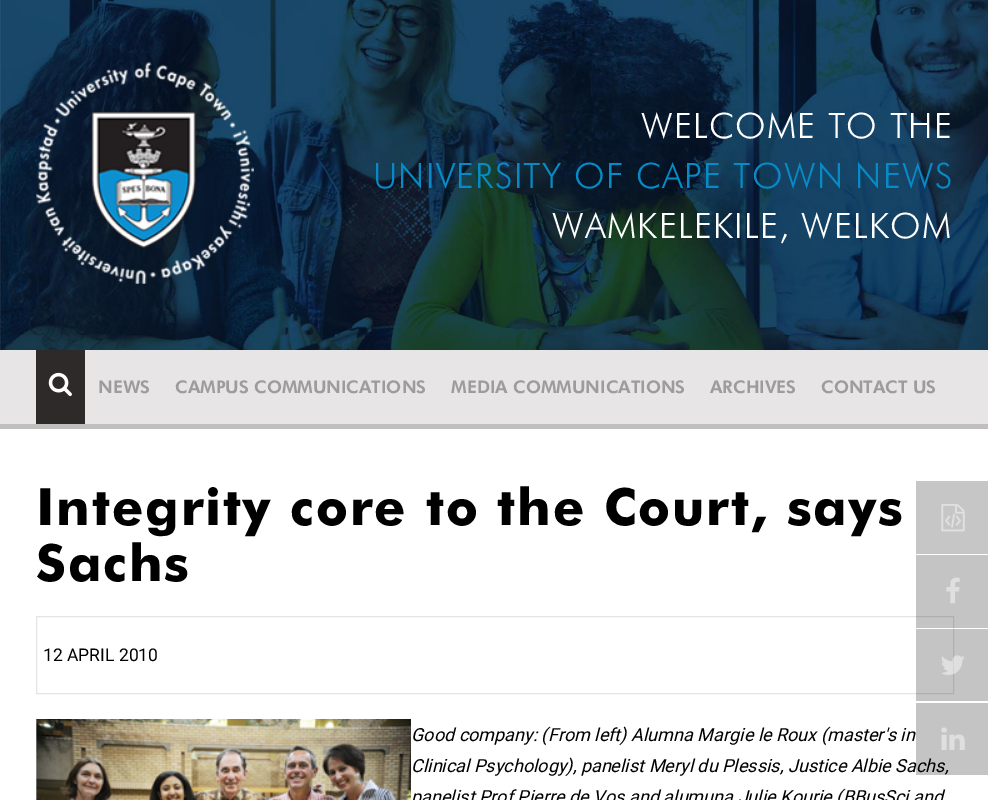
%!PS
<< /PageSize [988 800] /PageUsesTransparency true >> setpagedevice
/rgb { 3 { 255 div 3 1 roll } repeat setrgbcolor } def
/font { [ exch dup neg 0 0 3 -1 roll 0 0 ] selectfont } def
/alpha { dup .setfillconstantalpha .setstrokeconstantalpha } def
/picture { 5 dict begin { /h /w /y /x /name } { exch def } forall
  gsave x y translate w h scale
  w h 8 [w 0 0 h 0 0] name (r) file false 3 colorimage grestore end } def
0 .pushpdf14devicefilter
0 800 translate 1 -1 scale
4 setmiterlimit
255 255 255 rgb
0 0 988 800 rectfill
(img/1.rgb) 0 0 988 350 picture
(img/2.rgb) 36 62 218 222 picture
231 229 229 rgb
0 350 988 74 rectfill
46 42 42 rgb
36 350 49 74 rectfill
(img/3.rgb) 48 372 24 25 picture
191 191 191 rgb
0 424 988 5 rectfill
228 228 228 rgb
36.5 616.5 917 77 rectstroke
(img/4.rgb) 36 719 375 81 picture
198 198 198 rgb
916 481 72 73 rectfill
(img/5.rgb) 941 504 24 28 picture
0.23 alpha
0 0 0 rgb
916 555 72 73 rectfill
1 alpha
(img/6.rgb) 946 577 14 27 picture
0.23 alpha
916 629 72 72 rectfill
1 alpha
(img/7.rgb) 941 655 24 20 picture
/Futura-Light 35 font
255 255 255 rgb
641 138 moveto 1.25 0 (WELCOME TO THE) ashow
6 139 198 rgb
373 188 moveto 1.25 0 (UNIVERSITY OF CAPE TOWN NEWS) ashow
255 255 255 rgb
552 238 moveto 1.25 0 (WAMKELEKILE, WELKOM) ashow
/Futura-Black 17.5 font
156 156 156 rgb
[
  [(NEWS) 98 393]
  [(CAMPUS COMMUNICATIONS) 175 393]
  [(MEDIA COMMUNICATIONS) 451 393]
  [(ARCHIVES) 710 393]
  [(CONTACT US) 821 393]
] { aload pop moveto show } forall
/Futura-Bold 51.25 font
0 0 0 rgb
36 525 moveto 1.9 0 (Integrity core to the Court, says) ashow
36 581 moveto 1.9 0 (Sachs) ashow
/Roboto-Regular 17.5 font
43 661 moveto (12 APRIL 2010) show
/Roboto-Italic 18.05 font
[
  [(Good company: \(From left\) Alumna Margie le Roux \(master's in) 411 741]
  [(Clinical Psychology\), panelist Meryl du Plessis, Justice Albie Sachs,) 411 772]
  [(panelist Prof Pierre de Vos and alumuna Julie Kourie \(BBusSci and) 411 803]
] { aload pop moveto show } forall
0.23 alpha
916 703 72 72 rectfill
1 alpha
(img/8.rgb) 941 727 24 23 picture
.poppdf14devicefilter showpage
